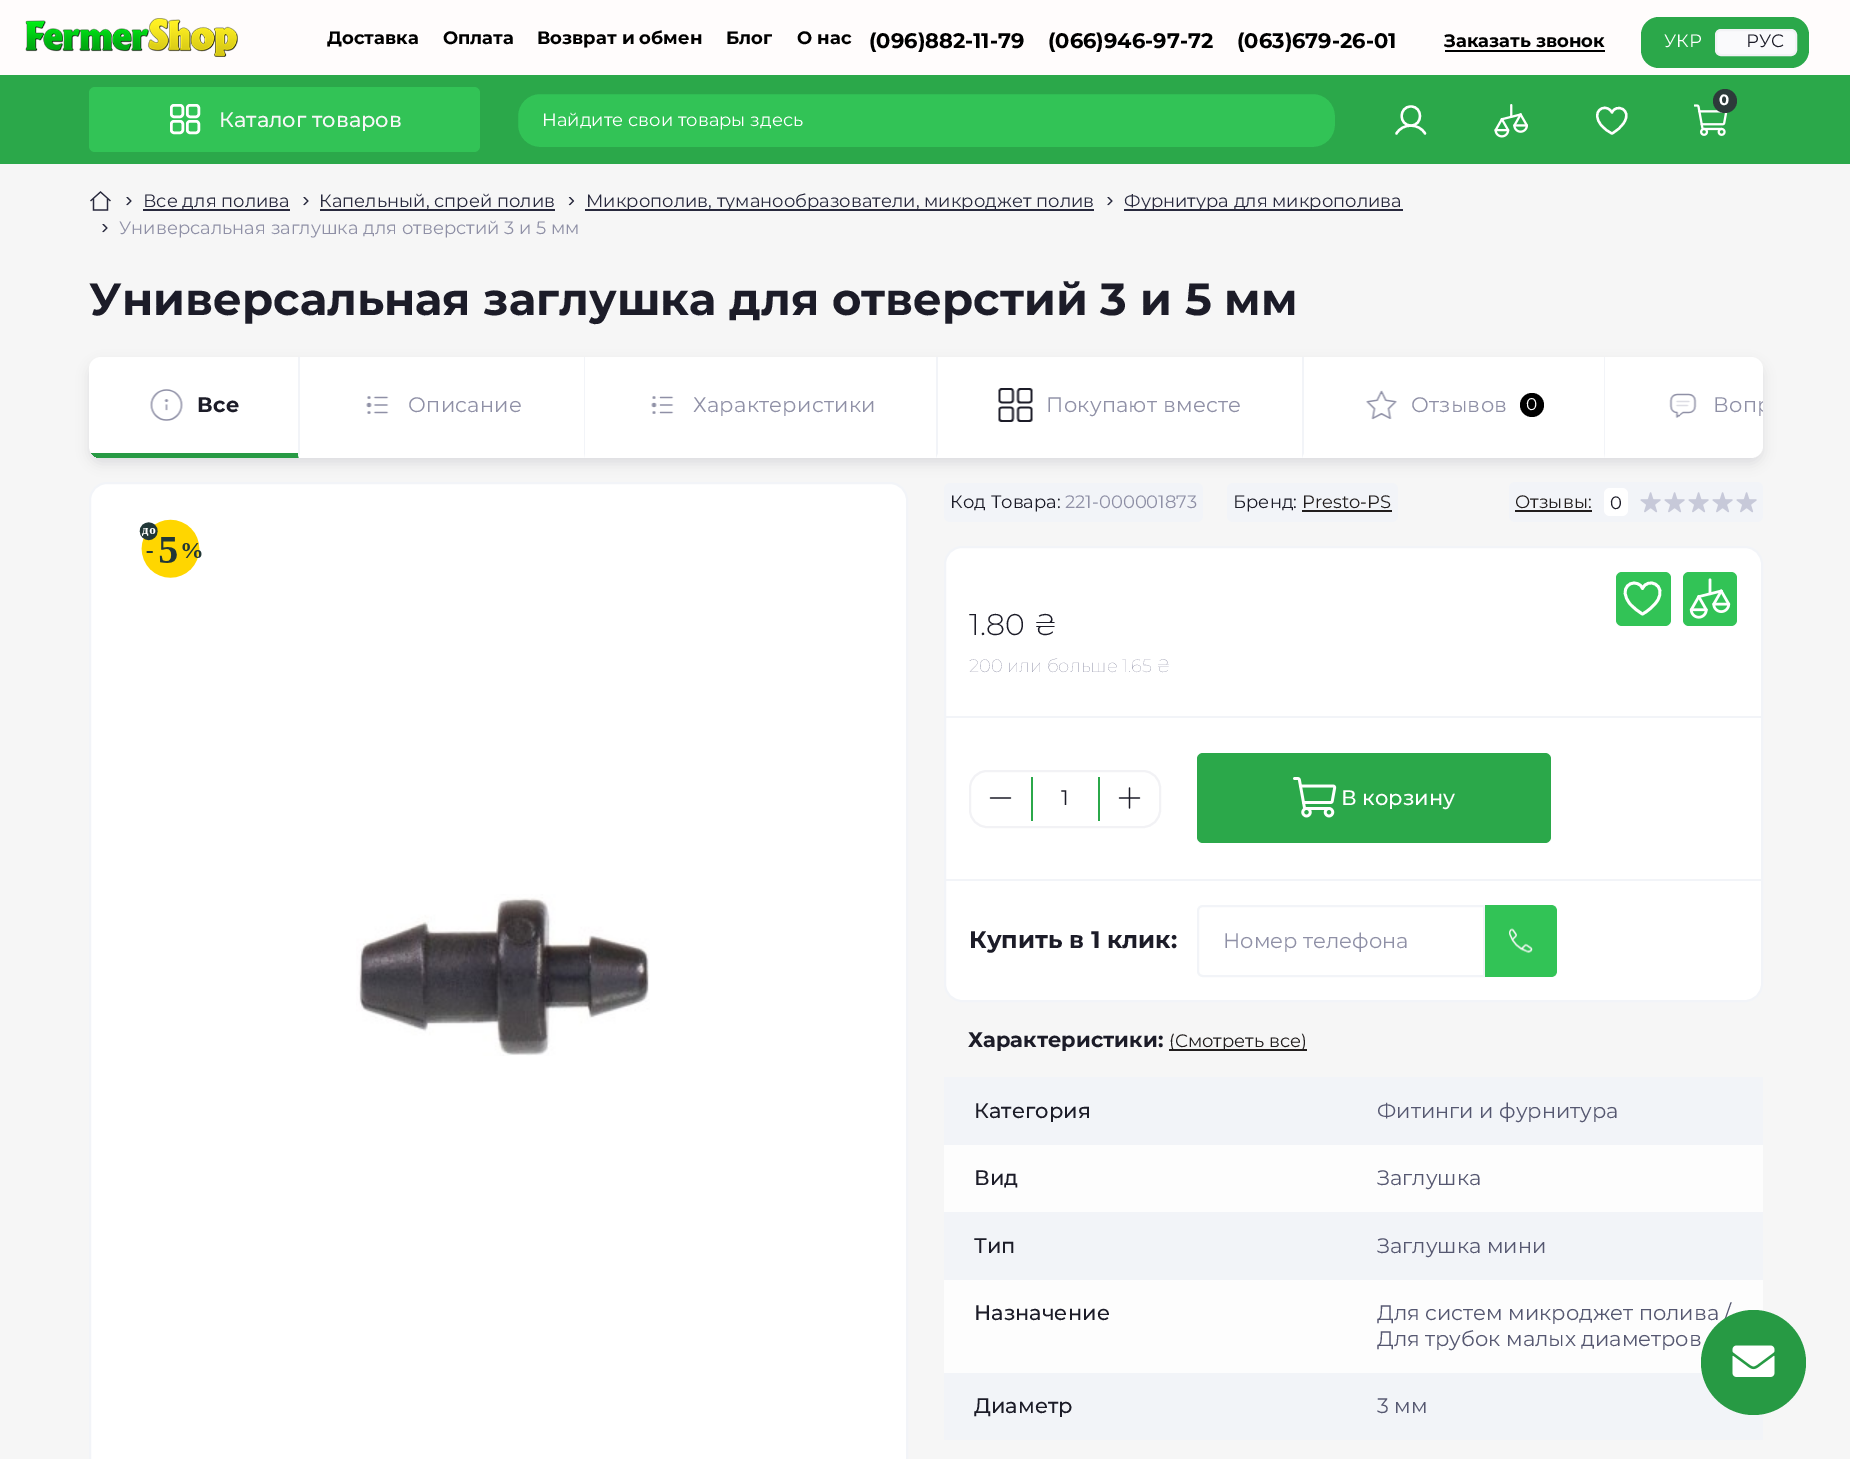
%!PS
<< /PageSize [1850 1459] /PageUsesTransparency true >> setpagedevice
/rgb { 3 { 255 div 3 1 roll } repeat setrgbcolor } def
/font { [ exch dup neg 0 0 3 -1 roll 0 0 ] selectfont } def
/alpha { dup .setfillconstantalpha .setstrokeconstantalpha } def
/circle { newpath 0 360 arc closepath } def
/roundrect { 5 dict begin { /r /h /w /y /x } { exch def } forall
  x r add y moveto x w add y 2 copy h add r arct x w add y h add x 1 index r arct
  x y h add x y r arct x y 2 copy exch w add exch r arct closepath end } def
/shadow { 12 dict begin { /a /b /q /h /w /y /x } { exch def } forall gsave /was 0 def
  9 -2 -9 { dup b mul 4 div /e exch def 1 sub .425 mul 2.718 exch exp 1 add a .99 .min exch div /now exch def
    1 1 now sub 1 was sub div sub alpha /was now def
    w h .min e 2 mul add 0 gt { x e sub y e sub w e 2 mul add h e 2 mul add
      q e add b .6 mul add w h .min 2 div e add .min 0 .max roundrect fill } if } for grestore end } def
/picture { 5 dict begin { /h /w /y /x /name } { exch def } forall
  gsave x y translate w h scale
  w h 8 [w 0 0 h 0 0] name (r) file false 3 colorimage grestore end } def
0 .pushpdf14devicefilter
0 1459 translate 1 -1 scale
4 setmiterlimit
246 246 246 rgb
0 0 1850 1459 rectfill
255 252 252 rgb
0 0 1850 75 rectfill
(img/1.rgb) 25 18 213 39 picture
0 0 0 rgb
1445 50 160 2 rectfill
43 168 74 rgb
1641 17 168 51 18 roundrect fill
250 250 252 rgb
1716 30 80 25 5 roundrect gsave fill grestore
242 242 245 rgb
2 setlinewidth
stroke
43 168 74 rgb
0 75 1850 89 rectfill
50 195 86 rgb
89 87 391 65 6 roundrect fill
255 255 255 rgb
2.5 setlinewidth
171.25 105.25 11.5 11.5 2.75 roundrect stroke
171.25 121.25 11.5 11.5 2.75 roundrect stroke
187.25 105.25 11.5 11.5 2.75 roundrect stroke
187.25 121.25 11.5 11.5 2.75 roundrect stroke
(img/2.rgb) 1694 104 34 32 picture
45 58 58 rgb
1725 101 12 circle fill
255 255 255 rgb
2.3 setlinewidth
1411 125.5 moveto 1423 125.5 1423 106.5 1411 106.5 curveto 1398.5 106.5 1398.5 125.5 1411 125.5 curveto closepath stroke
1 setlinecap
1 setlinejoin
1396.5 133.5 moveto 1402.5 123 1419 123 1425 133.5 curveto stroke
(img/3.rgb) 1494 104 34 34 picture
1612 133.5 moveto 1608 131.5 1604.5 129 1601.5 125.5 curveto 1590 112 1604 103 1610.5 110.5 curveto 1612 112.5 lineto 1616 103 1632.5 109.5 1624 122.5 curveto 1621.5 127 1616.5 131 1612 133.5 curveto closepath stroke
50 195 86 rgb
517 93 819 55 23 roundrect gsave fill grestore
43 168 74 rgb
2 setlinewidth
0 setlinecap
0 setlinejoin
stroke
(img/4.rgb) 90 191 21 20 picture
(img/5.rgb) 126 197 6 9 picture
40 41 61 rgb
143 209 147 2 rectfill
(img/5.rgb) 303 197 6 9 picture
320 209 235 2 rectfill
(img/6.rgb) 568 197 7 9 picture
585 209 509 2 rectfill
(img/5.rgb) 1107 197 6 9 picture
1124 209 279 2 rectfill
(img/5.rgb) 102 224 6 9 picture
255 255 255 rgb
90 483 817 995 17 roundrect gsave fill grestore
242 244 248 rgb
stroke
1509 482 254 40 6 roundrect fill
96 97 112 rgb
89 363 1674 101 12 6 0.16 shadow
255 255 255 rgb
89 357 1674 101 12 roundrect fill
gsave
89 357 1674 101 12 roundrect clip newpath
39 154 68 rgb
89 453 210 5 rectfill
grestore
(img/7.rgb) 150 389 33 32 picture
242 244 248 rgb
298 458 moveto 298 357 lineto 300 357 lineto 300 453 lineto closepath fill
(img/8.rgb) 366 396 23 18 picture
584 458 moveto 584 357 lineto 585 357 lineto 585 453 lineto closepath fill
(img/9.rgb) 651 396 23 18 picture
936 458 moveto 936 357 lineto 938 357 lineto 938 453 lineto closepath fill
(img/10.rgb) 998 388 35 34 picture
1302 458 moveto 1302 357 lineto 1304 357 lineto 1304 453 lineto closepath fill
(img/11.rgb) 1366 390 31 30 picture
0 0 0 rgb
1532 405 12 circle fill
242 244 248 rgb
1604 458 moveto 1604 357 lineto 1605 357 lineto 1605 453 lineto closepath fill
(img/12.rgb) 1669 393 28 25 picture
(img/13.rgb) 139 519 63 59 picture
(img/14.rgb) 356 894 294 162 picture
944 483 259 39 6 roundrect fill
1227 483 171 39 6 roundrect fill
34 30 30 rgb
1302 510 90 2 rectfill
1515 510 77 2 rectfill
255 255 255 rgb
1604 488 24 28 6 roundrect fill
(img/15.rgb) 1640 492 21 21 picture
(img/15.rgb) 1664 492 21 21 picture
(img/15.rgb) 1688 492 21 21 picture
(img/15.rgb) 1712 492 21 21 picture
(img/15.rgb) 1736 492 21 21 picture
945 547 817 454 17 roundrect gsave fill grestore
242 244 248 rgb
stroke
945 716 816 2 rectfill
50 195 86 rgb
1616 572 55 54 6 roundrect fill
255 255 255 rgb
2.8 setlinewidth
1 setlinecap
1 setlinejoin
1642.5 614 moveto 1638 611.5 1634 608 1630.5 604.5 curveto 1616.5 588 1633 577.5 1641 586 curveto 1642.5 588.5 lineto 1647.5 577 1667 584.5 1657.5 600.5 curveto 1654 606 1648 611 1642.5 614 curveto closepath stroke
50 195 86 rgb
1683 572 54 54 6 roundrect fill
(img/16.rgb) 1689 578 42 41 picture
242 242 245 rgb
2 setlinewidth
0 setlinecap
0 setlinejoin
970 771 190 56 17 roundrect stroke
(img/17.rgb) 989 797 23 2 picture
43 168 74 rgb
1098 777 2 44 rectfill
1031 777 2 44 rectfill
(img/18.rgb) 1118 787 23 22 picture
1197 753 354 90 6 roundrect fill
(img/19.rgb) 1293 777 44 41 picture
242 244 248 rgb
945 879 816 2 rectfill
1203 906 moveto 1484 906 lineto 1484 976 lineto 1203 976 lineto 1200 976 1198 974 1198 971 curveto 1198 911 lineto 1198 908 1200 906 1203 906 curveto closepath stroke
50 195 86 rgb
1485 905 moveto 1551 905 lineto 1554.5 905 1557 907.5 1557 911 curveto 1557 971 lineto 1557 974.5 1554.5 977 1551 977 curveto 1485 977 lineto closepath fill
(img/20.rgb) 1509 928 24 25 picture
[
  [1169 1049 138 2 34 30 30]
  [944 1077 819 363 242 244 248]
  [944 1145 819 67 253 253 253]
  [944 1280 819 93 253 253 253]
] { aload pop rgb rectfill } forall
/Montserrat-Bold 18 font
0 0 0 rgb
[
  [(Доставка) 327 44]
  [(Оплата) 443 44]
  [(Возврат и обмен) 537 44]
  [(Блог) 726 44]
  [(О нас) 797 44]
] { aload pop moveto show } forall
/Montserrat-Bold 21 font
869 48 moveto (\(096\)882-11-79    \(066\)946-97-72    \(063\)679-26-01) show
/Montserrat-Bold 18 font
1444 47 moveto (Заказать звонок) show
/Montserrat-Regular 18 font
255 255 255 rgb
1664 47 moveto (УКР) show
28 28 40 rgb
1746 47 moveto (РУС) show
/Montserrat-Medium 21 font
247 247 247 rgb
219 127 moveto (Каталог товаров) show
/Montserrat-Bold 15 font
255 255 255 rgb
1719 105 moveto (0) show
/Montserrat-Regular 18 font
542 126 moveto (Найдите свои товары здесь) show
40 41 61 rgb
[
  [(Все для полива) 143 207]
  [(Капельный, спрей полив) 319 207]
  [(Микрополив, туманообразователи, микроджет полив) 586 207]
  [(Фурнитура для микрополива) 1124 207]
] { aload pop moveto show } forall
143 144 166 rgb
119 234 moveto (Универсальная заглушка для отверстий 3 и 5 мм) show
/Montserrat-Bold 45 font
28 28 40 rgb
89 315 moveto (Универсальная заглушка для отверстий 3 и 5 мм) show
/Montserrat-Bold 21 font
197 412 moveto 0.25 0 (Все) ashow
/Montserrat-Regular 21 font
143 144 166 rgb
408 412 moveto 0.25 0 (Описание) ashow
693 412 moveto 0.25 0 (Характеристики) ashow
1046 412 moveto 0.25 0 (Покупают вместе) ashow
1411 412 moveto 0.25 0 (Отзывов) ashow
/Montserrat-Regular 17 font
255 255 255 rgb
1526 410 moveto (0) show
gsave
89 357 1674 101 12 roundrect clip newpath
/Montserrat-Regular 21 font
143 144 166 rgb
1713 412 moveto 0.25 0 (Вопр) ashow
grestore
/Montserrat-Regular 18 font
28 28 40 rgb
950 508 moveto (Код Товара:) show
143 144 166 rgb
1065 508 moveto (221-000001873) show
28 28 40 rgb
1233 508 moveto (Бренд:) show
34 30 30 rgb
1302 508 moveto (Presto-PS) show
1515 508 moveto (Отзывы:) show
28 28 40 rgb
1610 509 moveto (0) show
/Montserrat-Light 30 font
969 635 moveto 1 0 32 (1.80 ₴) widthshow
/Montserrat-Thin 18 font
143 144 166 rgb
969 672 moveto (200 или больше 1.65 ₴) show
/Montserrat-Regular 21 font
28 28 40 rgb
1061 805 moveto (1) show
/Montserrat-Medium 21 font
255 255 255 rgb
1341 805 moveto (В корзину) show
/Montserrat-Bold 24 font
28 28 40 rgb
969 948 moveto (Купить в 1 клик:) show
/Montserrat-Regular 21 font
143 144 166 rgb
1223 948 moveto (Номер телефона) show
/Montserrat-Bold 21 font
28 28 40 rgb
968 1047 moveto (Характеристики:) show
/Montserrat-Regular 18 font
34 30 30 rgb
1169 1047 moveto (\(Смотреть все\)) show
/Montserrat-Medium 21 font
28 28 40 rgb
974 1118 moveto (Категория) show
/Montserrat-Regular 21 font
85 87 112 rgb
1377 1118 moveto (Фитинги и фурнитура) show
/Montserrat-Medium 21 font
28 28 40 rgb
974 1185 moveto (Вид) show
/Montserrat-Regular 21 font
85 87 112 rgb
1377 1185 moveto (Заглушка) show
/Montserrat-Medium 21 font
28 28 40 rgb
974 1253 moveto (Тип) show
/Montserrat-Regular 21 font
85 87 112 rgb
1377 1253 moveto (Заглушка мини) show
/Montserrat-Medium 21 font
28 28 40 rgb
974 1320 moveto (Назначение) show
/Montserrat-Regular 21 font
85 87 112 rgb
1377 1320 moveto (Для систем микроджет полива /) show
1377 1346 moveto (Для трубок малых диаметров) show
/Montserrat-Medium 21 font
28 28 40 rgb
974 1413 moveto (Диаметр) show
/Montserrat-Regular 21 font
85 87 112 rgb
1377 1413 moveto (3 мм) show
39 154 68 rgb
1753.5 1362.5 52.5 circle fill
(img/21.rgb) 1732 1345 43 32 picture
.poppdf14devicefilter showpage
